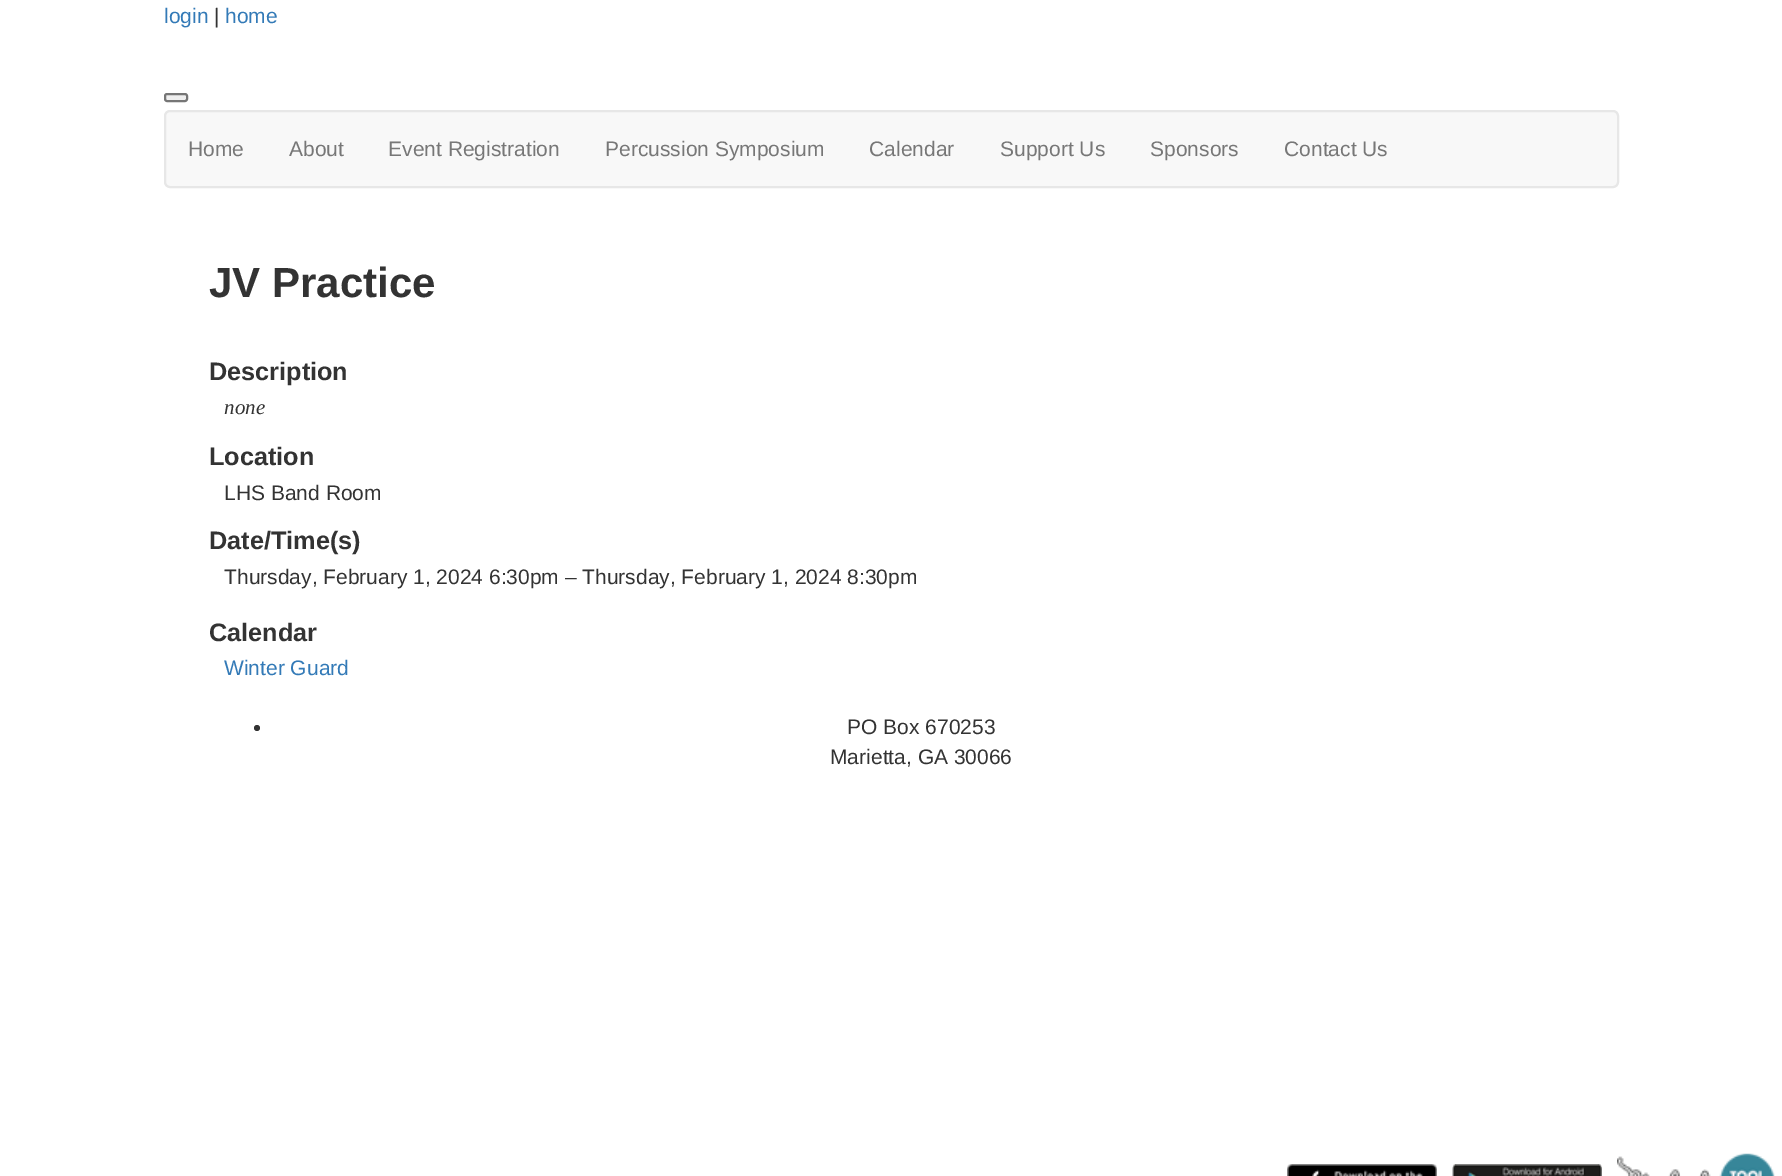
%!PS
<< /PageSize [1782 1176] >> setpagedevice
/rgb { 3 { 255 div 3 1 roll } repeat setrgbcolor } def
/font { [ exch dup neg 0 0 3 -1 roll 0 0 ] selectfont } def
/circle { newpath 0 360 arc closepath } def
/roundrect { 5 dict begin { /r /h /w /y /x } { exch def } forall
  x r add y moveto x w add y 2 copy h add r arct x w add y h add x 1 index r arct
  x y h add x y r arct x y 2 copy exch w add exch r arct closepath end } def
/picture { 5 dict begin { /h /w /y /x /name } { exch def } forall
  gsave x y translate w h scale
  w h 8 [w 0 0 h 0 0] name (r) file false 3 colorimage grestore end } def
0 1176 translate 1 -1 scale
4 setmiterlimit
255 255 255 rgb
0 0 1782 1176 rectfill
239 239 239 rgb
165 94 22 7 2 roundrect gsave fill grestore
118 118 118 rgb
2 setlinewidth
stroke
248 248 248 rgb
165 111 1453 76 5 roundrect gsave fill grestore
231 231 231 rgb
stroke
51 51 51 rgb
257 728 3 circle fill
(img/1.rgb) 1287 1164 150 12 picture
(img/2.rgb) 1452 1164 150 12 picture
(img/3.rgb) 1617 1153 158 23 picture
/LiberationSans-Regular 21 font
51 122 183 rgb
164 23 moveto (login) show
51 51 51 rgb
214 23 moveto (|) show
51 122 183 rgb
225 23 moveto (home) show
119 119 119 rgb
[
  [(Home) 188 156]
  [(About) 289 156]
  [(Event Registration) 388 156]
  [(Percussion Symposium) 605 156]
  [(Calendar) 869 156]
  [(Support Us) 1000 156]
  [(Sponsors) 1150 156]
  [(Contact Us) 1284 156]
] { aload pop moveto show } forall
/LiberationSans-Bold 42 font
51 51 51 rgb
209 297 moveto (JV Practice) show
/LiberationSans-Bold 25.25 font
209 380 moveto (Description) show
/LiberationSerif-Italic 21 font
224 414 moveto (none) show
/LiberationSans-Bold 25.25 font
209 465 moveto (Location) show
/LiberationSans-Regular 21 font
224 500 moveto (LHS Band Room) show
/LiberationSans-Bold 25.25 font
209 549 moveto (Date/Time\(s\)) show
/LiberationSans-Regular 21 font
224 584 moveto (Thursday, February 1, 2024 6:30pm – Thursday, February 1, 2024 8:30pm) show
/LiberationSans-Bold 25.25 font
209 641 moveto (Calendar) show
/LiberationSans-Regular 21 font
51 122 183 rgb
224 675 moveto (Winter Guard) show
51 51 51 rgb
847 734 moveto (PO Box 670253) show
830 764 moveto (Marietta, GA 30066) show
showpage
